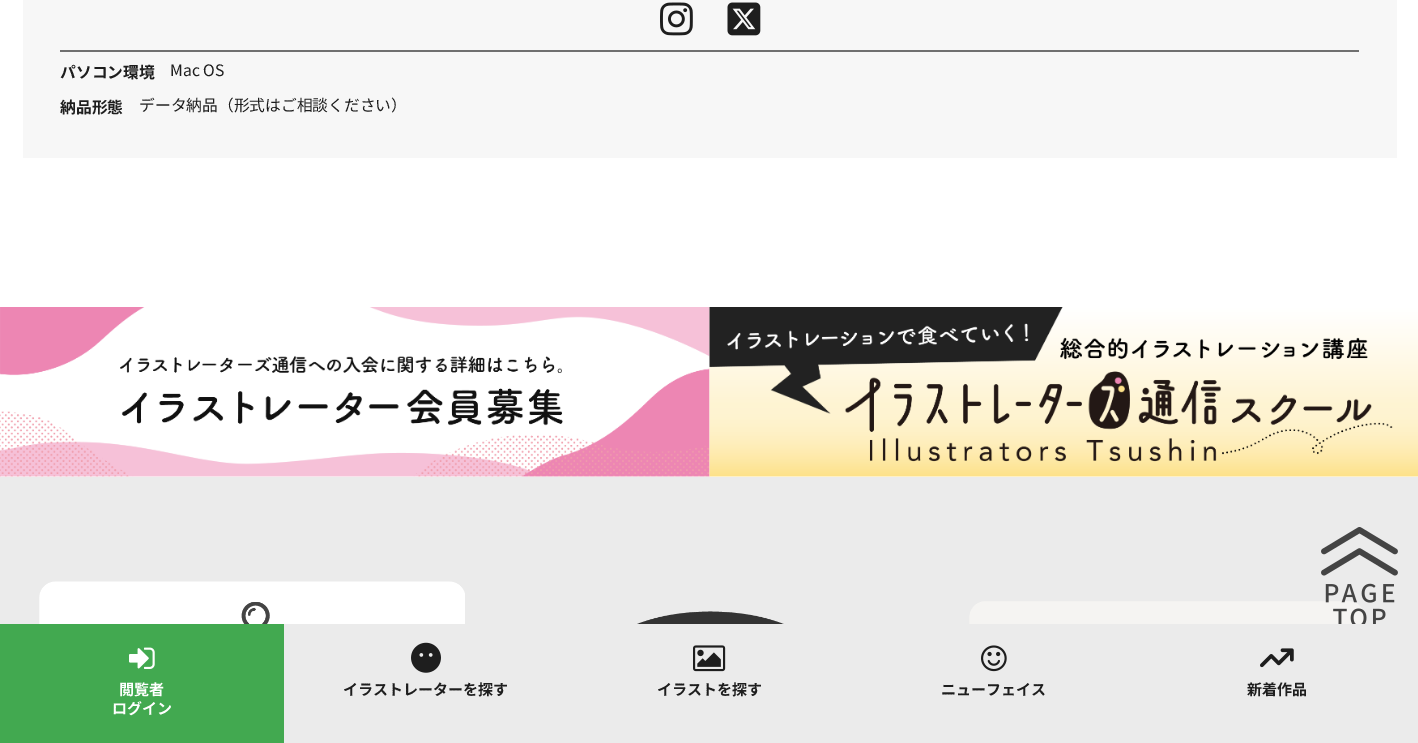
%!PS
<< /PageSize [1418 743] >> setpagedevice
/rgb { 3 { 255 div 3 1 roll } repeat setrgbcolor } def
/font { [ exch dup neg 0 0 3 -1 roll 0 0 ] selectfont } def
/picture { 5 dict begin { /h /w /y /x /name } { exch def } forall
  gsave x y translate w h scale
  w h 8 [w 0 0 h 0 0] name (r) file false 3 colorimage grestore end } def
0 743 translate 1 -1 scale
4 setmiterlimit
255 255 255 rgb
0 0 1418 743 rectfill
247 247 247 rgb
23 0 1374 158 rectfill
112 112 112 rgb
60 50 1299 2 rectfill
(img/1.rgb) 660 2 33 34 picture
(img/2.rgb) 727 2 34 34 picture
(img/3.rgb) 0 307 710 170 picture
(img/4.rgb) 709 307 709 170 picture
235 235 235 rgb
0 477 1418 147 rectfill
(img/5.rgb) 39 581 426 43 picture
(img/6.rgb) 637 611 147 13 picture
(img/7.rgb) 969 601 396 23 picture
284 624 1134 119 rectfill
66 169 80 rgb
0 624 284 119 rectfill
(img/8.rgb) 129 647 26 22 picture
(img/9.rgb) 411 642 30 31 picture
(img/10.rgb) 693 645 33 27 picture
(img/11.rgb) 981 645 26 27 picture
(img/12.rgb) 1260 648 34 20 picture
(img/13.rgb) 1321 527 77 97 picture
/NotoSansJP-Bold 15.75 font
30 30 30 rgb
60 78 moveto (パソコン環境) show
/NotoSansJP-Regular 15.75 font
170 76 moveto (Mac OS) show
/NotoSansJP-Bold 15.75 font
60 113 moveto (納品形態) show
/NotoSansJP-Regular 15.75 font
139 111 moveto (データ納品（形式はご相談ください）) show
/NotoSansJP-Bold 15 font
255 255 255 rgb
119 695 moveto (閲覧者) show
112 714 moveto (ログイン) show
30 30 30 rgb
[
  [(イラストレーターを探す) 343 695]
  [(イラストを探す) 657 695]
  [(ニューフェイス) 941 695]
  [(新着作品) 1247 695]
] { aload pop moveto show } forall
showpage
